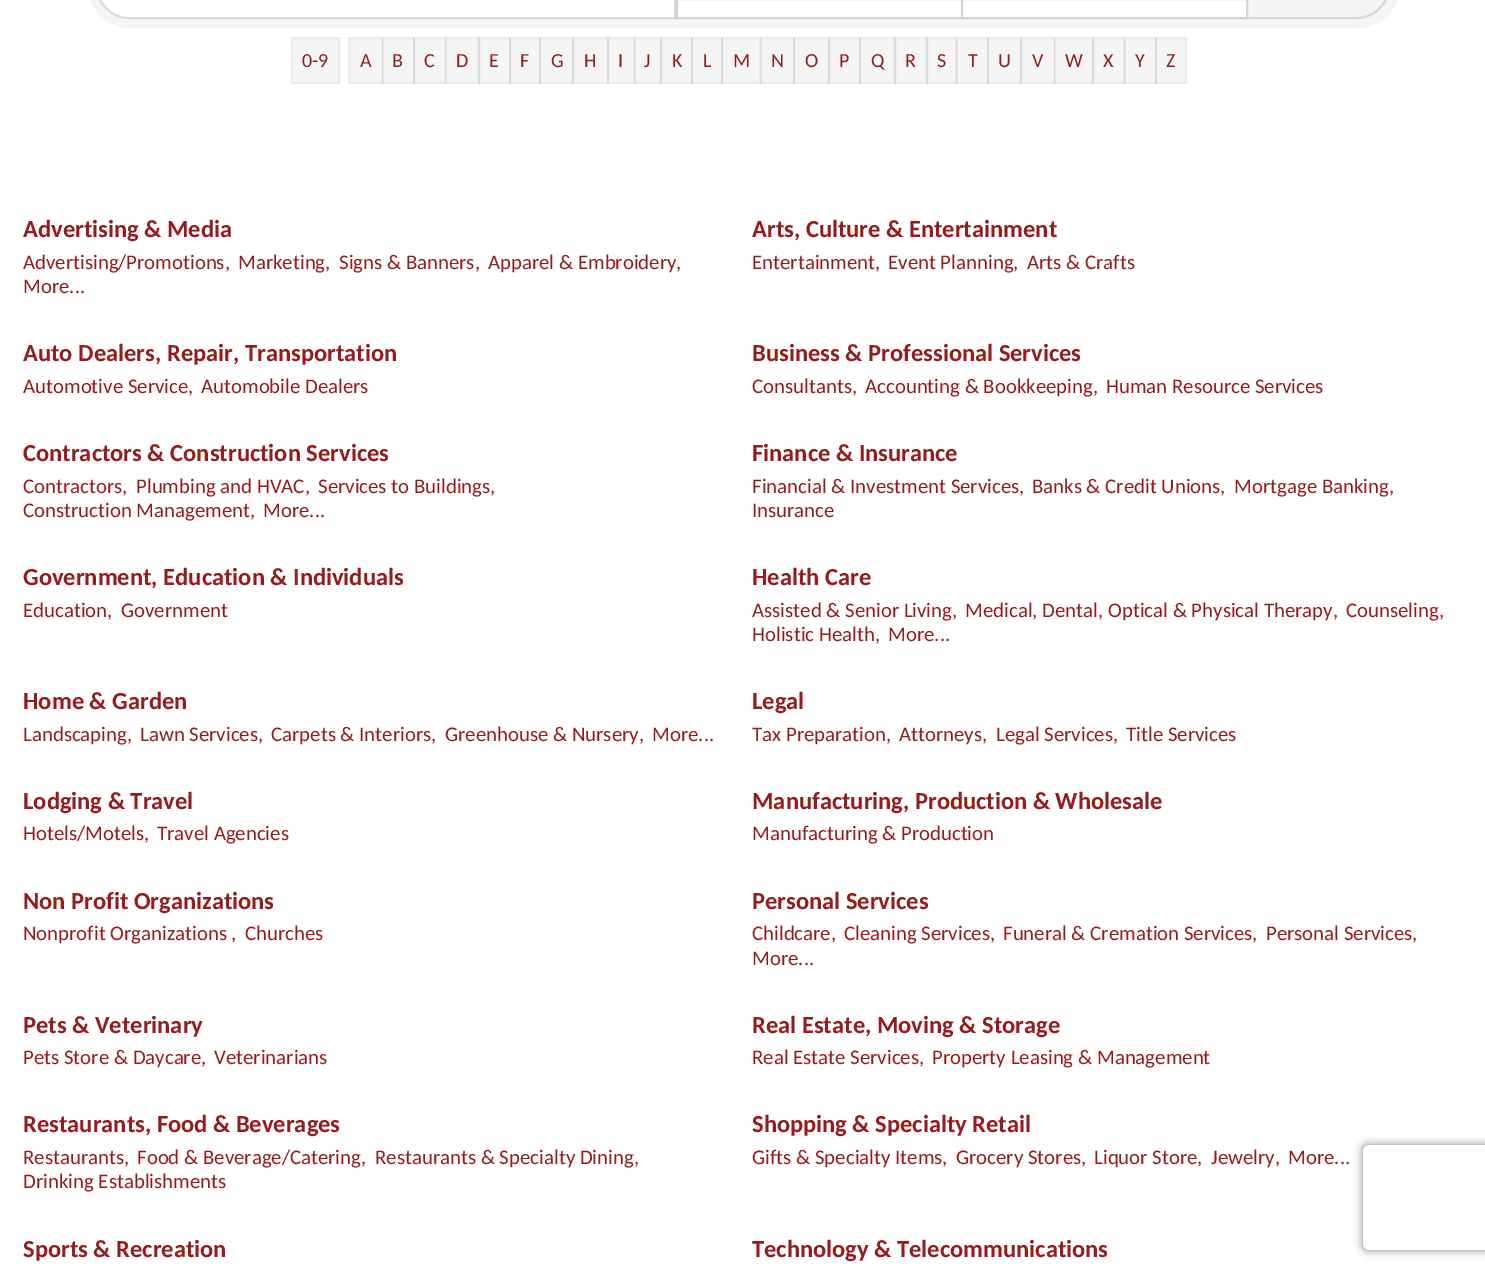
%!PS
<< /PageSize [1485 1274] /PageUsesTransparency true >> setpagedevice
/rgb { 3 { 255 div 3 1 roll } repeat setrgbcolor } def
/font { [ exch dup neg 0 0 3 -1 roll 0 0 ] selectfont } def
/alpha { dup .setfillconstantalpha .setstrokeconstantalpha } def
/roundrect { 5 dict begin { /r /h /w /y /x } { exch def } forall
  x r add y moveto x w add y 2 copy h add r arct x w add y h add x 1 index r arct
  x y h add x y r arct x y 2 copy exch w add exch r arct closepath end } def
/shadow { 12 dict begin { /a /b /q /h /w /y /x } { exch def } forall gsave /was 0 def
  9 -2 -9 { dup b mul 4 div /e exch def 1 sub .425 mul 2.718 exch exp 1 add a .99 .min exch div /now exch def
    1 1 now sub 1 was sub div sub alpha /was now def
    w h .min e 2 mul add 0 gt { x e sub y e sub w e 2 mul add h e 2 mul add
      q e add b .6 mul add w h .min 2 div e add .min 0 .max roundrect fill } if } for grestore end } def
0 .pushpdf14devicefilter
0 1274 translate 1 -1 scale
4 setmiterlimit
255 255 255 rgb
0 0 1485 1274 rectfill
245 245 245 rgb
88 -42 1312 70 42 roundrect fill
255 255 255 rgb
129.5 -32 moveto 674 -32 lineto 674 18 lineto 129.5 18 lineto 112 18 98 4 98 -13.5 curveto 98 -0.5 lineto 98 -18 112 -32 129.5 -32 curveto closepath fill
0.12 alpha
0 0 0 rgb
2 setlinewidth
129 -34 moveto 675 -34 lineto 675 18 lineto 129 18 lineto 111.5 18 97 3.5 97 -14 curveto 97 -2 lineto 97 -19.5 111.5 -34 129 -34 curveto closepath stroke
1 alpha
255 255 255 rgb
677 -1 moveto 962 -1 lineto 962 18 lineto 677 18 lineto closepath gsave fill grestore
206 212 218 rgb
stroke
255 255 255 rgb
962 -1 moveto 1247 -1 lineto 1247 18 lineto 962 18 lineto closepath gsave fill grestore
206 212 218 rgb
stroke
244 244 244 rgb
1247 -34 moveto 1357 -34 lineto 1374.5 -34 1389 -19.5 1389 -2 curveto 1389 -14 lineto 1389 3.5 1374.5 18 1357 18 curveto 1247 18 lineto closepath gsave fill grestore
214 214 214 rgb
stroke
245 245 245 rgb
292 38 moveto 339 38 lineto 339 83 lineto 292 83 lineto closepath gsave fill grestore
235 235 235 rgb
stroke
245 245 245 rgb
349 38 moveto 382 38 lineto 382 83 lineto 349 83 lineto closepath gsave fill grestore
235 235 235 rgb
stroke
0.04 alpha
0 0 0 rgb
382 37 33 47 rectfill
383 38 31 45 rectstroke
413 37 33 47 rectfill
414 38 31 45 rectstroke
445 37 35 47 rectfill
446 38 33 45 rectstroke
478 37 33 47 rectfill
479 38 31 45 rectstroke
509 37 32 47 rectfill
510 38 30 45 rectstroke
539 37 35 47 rectfill
540 38 33 45 rectstroke
572 37 37 47 rectfill
573 38 35 45 rectstroke
607 37 28 47 rectfill
608 38 26 45 rectstroke
634 37 28 47 rectfill
635 38 26 45 rectstroke
660 37 33 47 rectfill
661 38 31 45 rectstroke
691 37 32 47 rectfill
692 38 30 45 rectstroke
721 37 40 47 rectfill
722 38 38 45 rectstroke
760 37 35 47 rectfill
761 38 33 45 rectstroke
793 37 37 47 rectfill
794 38 35 45 rectstroke
828 37 33 47 rectfill
829 38 31 45 rectstroke
859 37 37 47 rectfill
860 38 35 45 rectstroke
894 37 34 47 rectfill
895 38 32 45 rectstroke
926 37 31 47 rectfill
927 38 29 45 rectstroke
956 37 33 47 rectfill
957 38 31 45 rectstroke
987 37 35 47 rectfill
988 38 33 45 rectstroke
1020 37 35 47 rectfill
1021 38 33 45 rectstroke
1054 37 40 47 rectfill
1055 38 38 45 rectstroke
1092 37 33 47 rectfill
1093 38 31 45 rectstroke
1124 37 33 47 rectfill
1125 38 31 45 rectstroke
1155 37 32 47 rectfill
1156 38 30 45 rectstroke
gsave
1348 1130 moveto 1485 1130 lineto 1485 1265 lineto 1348 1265 lineto closepath 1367 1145 moveto 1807 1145 lineto 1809 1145 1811 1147 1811 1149 curveto 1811 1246 lineto 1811 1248 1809 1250 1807 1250 curveto 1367 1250 lineto 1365 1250 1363 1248 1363 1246 curveto 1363 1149 lineto 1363 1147 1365 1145 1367 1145 curveto closepath eoclip newpath
1 alpha
128 128 128 rgb
1363 1145 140 105 4 4.5 1 shadow
grestore
/Carlito-Regular 20 font
1 alpha
152 27 27 rgb
[
  [(0-9) 302 67]
  [(A) 360 67]
  [(B) 392 67]
  [(C) 424 67]
  [(D) 456 67]
  [(E) 489 67]
  [(F) 520 67]
  [(G) 551 67]
  [(H) 584 67]
  [(I) 618 67]
  [(J) 644 67]
  [(K) 672 67]
  [(L) 703 67]
  [(M) 733 67]
  [(N) 771 67]
  [(O) 805 67]
  [(P) 839 67]
  [(Q) 871 67]
  [(R) 905 67]
  [(S) 937 67]
  [(T) 968 67]
  [(U) 998 67]
  [(V) 1032 67]
  [(W) 1065 67]
  [(X) 1103 67]
  [(Y) 1135 67]
  [(Z) 1166 67]
] { aload pop moveto show } forall
/Carlito-Bold 24.5 font
23 237 moveto (Advertising & Media) show
/Carlito-Regular 20.8 font
[
  [(Advertising/Promotions,) 23 269]
  [(Marketing,) 238 269]
  [(Signs & Banners,) 339 269]
  [(Apparel & Embroidery,) 488 269]
  [(More...) 23 293]
] { aload pop moveto show } forall
/Carlito-Bold 24.5 font
752 237 moveto (Arts, Culture & Entertainment) show
/Carlito-Regular 20.8 font
[
  [(Entertainment,) 752 269]
  [(Event Planning,) 888 269]
  [(Arts & Crafts) 1027 269]
] { aload pop moveto show } forall
/Carlito-Bold 24.5 font
23 361 moveto (Auto Dealers, Repair, Transportation) show
/Carlito-Regular 20.8 font
23 393 moveto (Automotive Service,) show
201 393 moveto (Automobile Dealers) show
/Carlito-Bold 24.5 font
752 361 moveto (Business & Professional Services) show
/Carlito-Regular 20.8 font
[
  [(Consultants,) 752 393]
  [(Accounting & Bookkeeping,) 865 393]
  [(Human Resource Services) 1106 393]
] { aload pop moveto show } forall
/Carlito-Bold 24.5 font
23 461 moveto (Contractors & Construction Services) show
/Carlito-Regular 20.8 font
[
  [(Contractors,) 23 493]
  [(Plumbing and HVAC,) 136 493]
  [(Services to Buildings,) 318 493]
  [(Construction Management,) 23 517]
  [(More...) 263 517]
] { aload pop moveto show } forall
/Carlito-Bold 24.5 font
752 461 moveto (Finance & Insurance) show
/Carlito-Regular 20.8 font
[
  [(Financial & Investment Services,) 752 493]
  [(Banks & Credit Unions,) 1032 493]
  [(Mortgage Banking,) 1234 493]
  [(Insurance) 752 517]
] { aload pop moveto show } forall
/Carlito-Bold 24.5 font
23 585 moveto (Government, Education & Individuals) show
/Carlito-Regular 20.8 font
23 617 moveto (Education,) show
121 617 moveto (Government) show
/Carlito-Bold 24.5 font
752 585 moveto (Health Care) show
/Carlito-Regular 20.8 font
[
  [(Assisted & Senior Living,) 752 617]
  [(Medical, Dental, Optical & Physical Therapy,) 965 617]
  [(Counseling,) 1346 617]
  [(Holistic Health,) 752 641]
  [(More...) 888 641]
] { aload pop moveto show } forall
/Carlito-Bold 24.5 font
23 709 moveto (Home & Garden) show
/Carlito-Regular 20.8 font
[
  [(Landscaping,) 23 741]
  [(Lawn Services,) 140 741]
  [(Carpets & Interiors,) 271 741]
  [(Greenhouse & Nursery,) 445 741]
  [(More...) 652 741]
] { aload pop moveto show } forall
/Carlito-Bold 24.5 font
752 709 moveto (Legal) show
/Carlito-Regular 20.8 font
[
  [(Tax Preparation,) 752 741]
  [(Attorneys,) 899 741]
  [(Legal Services,) 996 741]
  [(Title Services) 1126 741]
] { aload pop moveto show } forall
/Carlito-Bold 24.5 font
23 809 moveto (Lodging & Travel) show
/Carlito-Regular 20.8 font
23 840 moveto (Hotels/Motels,) show
157 840 moveto (Travel Agencies) show
/Carlito-Bold 24.5 font
752 809 moveto (Manufacturing, Production & Wholesale) show
/Carlito-Regular 20.8 font
752 840 moveto (Manufacturing & Production) show
/Carlito-Bold 24.5 font
23 909 moveto (Non Profit Organizations) show
/Carlito-Regular 20.8 font
23 940 moveto (Nonprofit Organizations ,) show
245 940 moveto (Churches) show
/Carlito-Bold 24.5 font
752 909 moveto (Personal Services) show
/Carlito-Regular 20.8 font
[
  [(Childcare,) 752 940]
  [(Cleaning Services,) 844 940]
  [(Funeral & Cremation Services,) 1003 940]
  [(Personal Services,) 1266 940]
  [(More...) 752 965]
] { aload pop moveto show } forall
/Carlito-Bold 24.5 font
23 1033 moveto (Pets & Veterinary) show
/Carlito-Regular 20.8 font
23 1064 moveto (Pets Store & Daycare,) show
214 1064 moveto (Veterinarians) show
/Carlito-Bold 24.5 font
752 1033 moveto (Real Estate, Moving & Storage) show
/Carlito-Regular 20.8 font
752 1064 moveto (Real Estate Services,) show
932 1064 moveto (Property Leasing & Management) show
/Carlito-Bold 24.5 font
23 1132 moveto (Restaurants, Food & Beverages) show
/Carlito-Regular 20.8 font
[
  [(Restaurants,) 23 1164]
  [(Food & Beverage/Catering,) 137 1164]
  [(Restaurants & Specialty Dining,) 375 1164]
  [(Drinking Establishments) 23 1188]
] { aload pop moveto show } forall
/Carlito-Bold 24.5 font
752 1132 moveto (Shopping & Specialty Retail) show
/Carlito-Regular 20.8 font
[
  [(Gifts & Specialty Items,) 752 1164]
  [(Grocery Stores,) 956 1164]
  [(Liquor Store,) 1094 1164]
  [(Jewelry,) 1211 1164]
  [(More...) 1288 1164]
] { aload pop moveto show } forall
/Carlito-Bold 24.5 font
23 1257 moveto (Sports & Recreation) show
752 1257 moveto (Technology & Telecommunications) show
.poppdf14devicefilter showpage
